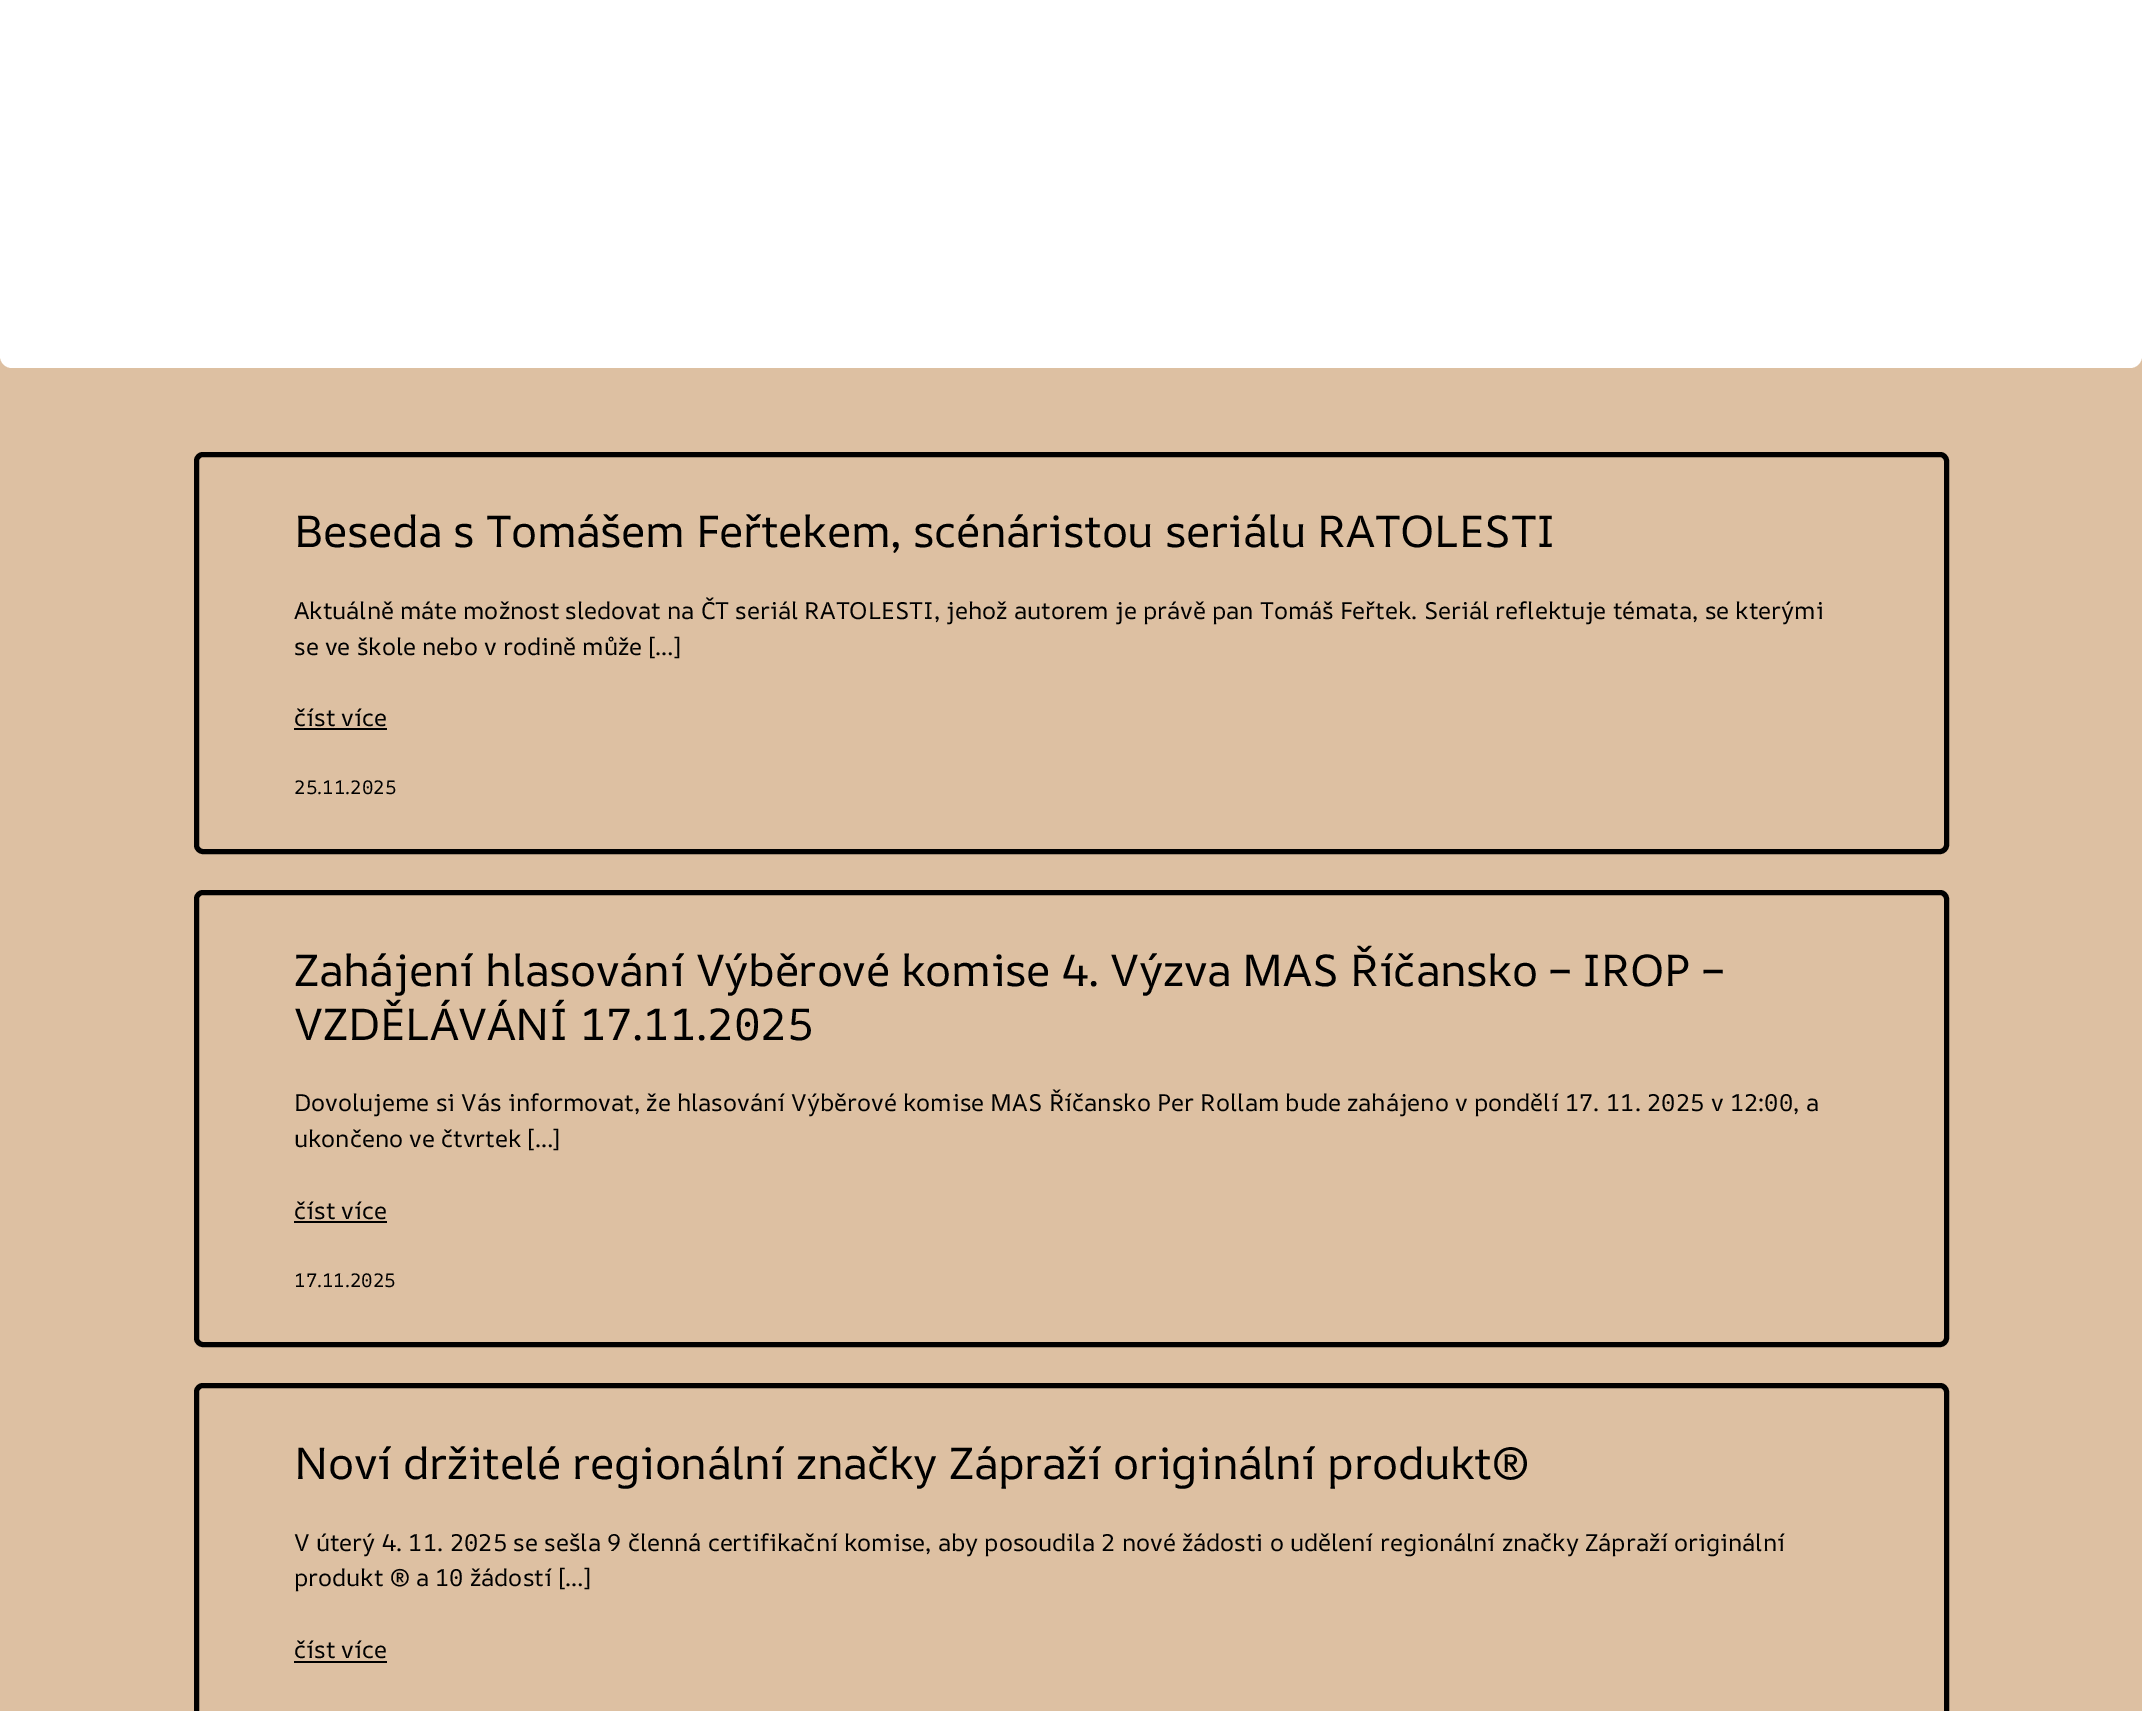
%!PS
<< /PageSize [2142 1711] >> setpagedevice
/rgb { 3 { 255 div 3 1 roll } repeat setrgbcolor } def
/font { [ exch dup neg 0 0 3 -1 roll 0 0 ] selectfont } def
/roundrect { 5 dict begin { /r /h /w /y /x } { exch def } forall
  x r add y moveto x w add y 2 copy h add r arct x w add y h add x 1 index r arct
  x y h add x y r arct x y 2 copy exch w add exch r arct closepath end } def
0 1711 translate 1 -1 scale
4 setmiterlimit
221 192 162 rgb
0 0 2142 1711 rectfill
255 255 255 rgb
0 -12 2142 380 12 roundrect fill
0 0 0 rgb
5 setlinewidth
196.5 454.5 1750 397 6.5 roundrect stroke
294 728 93 2 rectfill
196.5 892.5 1750 452 6.5 roundrect stroke
294 1221 93 2 rectfill
196.5 1385.5 1750 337 6.5 roundrect stroke
294 1661 93 2 rectfill
/AROneSans-Regular 44.7 font
294 547 moveto -0.35 0 (Beseda s Tomášem Feřtekem, scénáristou seriálu RATOLESTI) ashow
/AROneSans-Regular 23.95 font
[
  [(Aktuálně máte možnost sledovat na ČT seriál RATOLESTI, jehož autorem je právě pan Tomáš Feřtek. Seriál reflektuje témata, se kterými) 294 619]
  [(se ve škole nebo v rodině může […]) 294 655]
  [(číst více) 294 726]
] { aload pop moveto show } forall
/AROneSans-Regular 19.25 font
294 794 moveto (25.11.2025) show
/AROneSans-Regular 44.7 font
294 986 moveto -0.35 0 (Zahájení hlasování Výběrové komise 4. Výzva MAS Říčansko – IROP –) ashow
294 1040 moveto -0.35 0 (VZDĚLÁVÁNÍ 17.11.2025) ashow
/AROneSans-Regular 23.95 font
[
  [(Dovolujeme si Vás informovat, že hlasování Výběrové komise MAS Říčansko Per Rollam bude zahájeno v pondělí 17. 11. 2025 v 12:00, a) 294 1111]
  [(ukončeno ve čtvrtek […]) 294 1147]
  [(číst více) 294 1219]
] { aload pop moveto show } forall
/AROneSans-Regular 19.25 font
294 1287 moveto (17.11.2025) show
/AROneSans-Regular 44.7 font
294 1479 moveto -0.35 0 (Noví držitelé regionální značky Zápraží originální produkt®) ashow
/AROneSans-Regular 23.95 font
[
  [(V úterý 4. 11. 2025 se sešla 9 členná certifikační komise, aby posoudila 2 nové žádosti o udělení regionální značky Zápraží originální) 294 1551]
  [(produkt ® a 10 žádostí […]) 294 1586]
  [(číst více) 294 1658]
] { aload pop moveto show } forall
showpage
